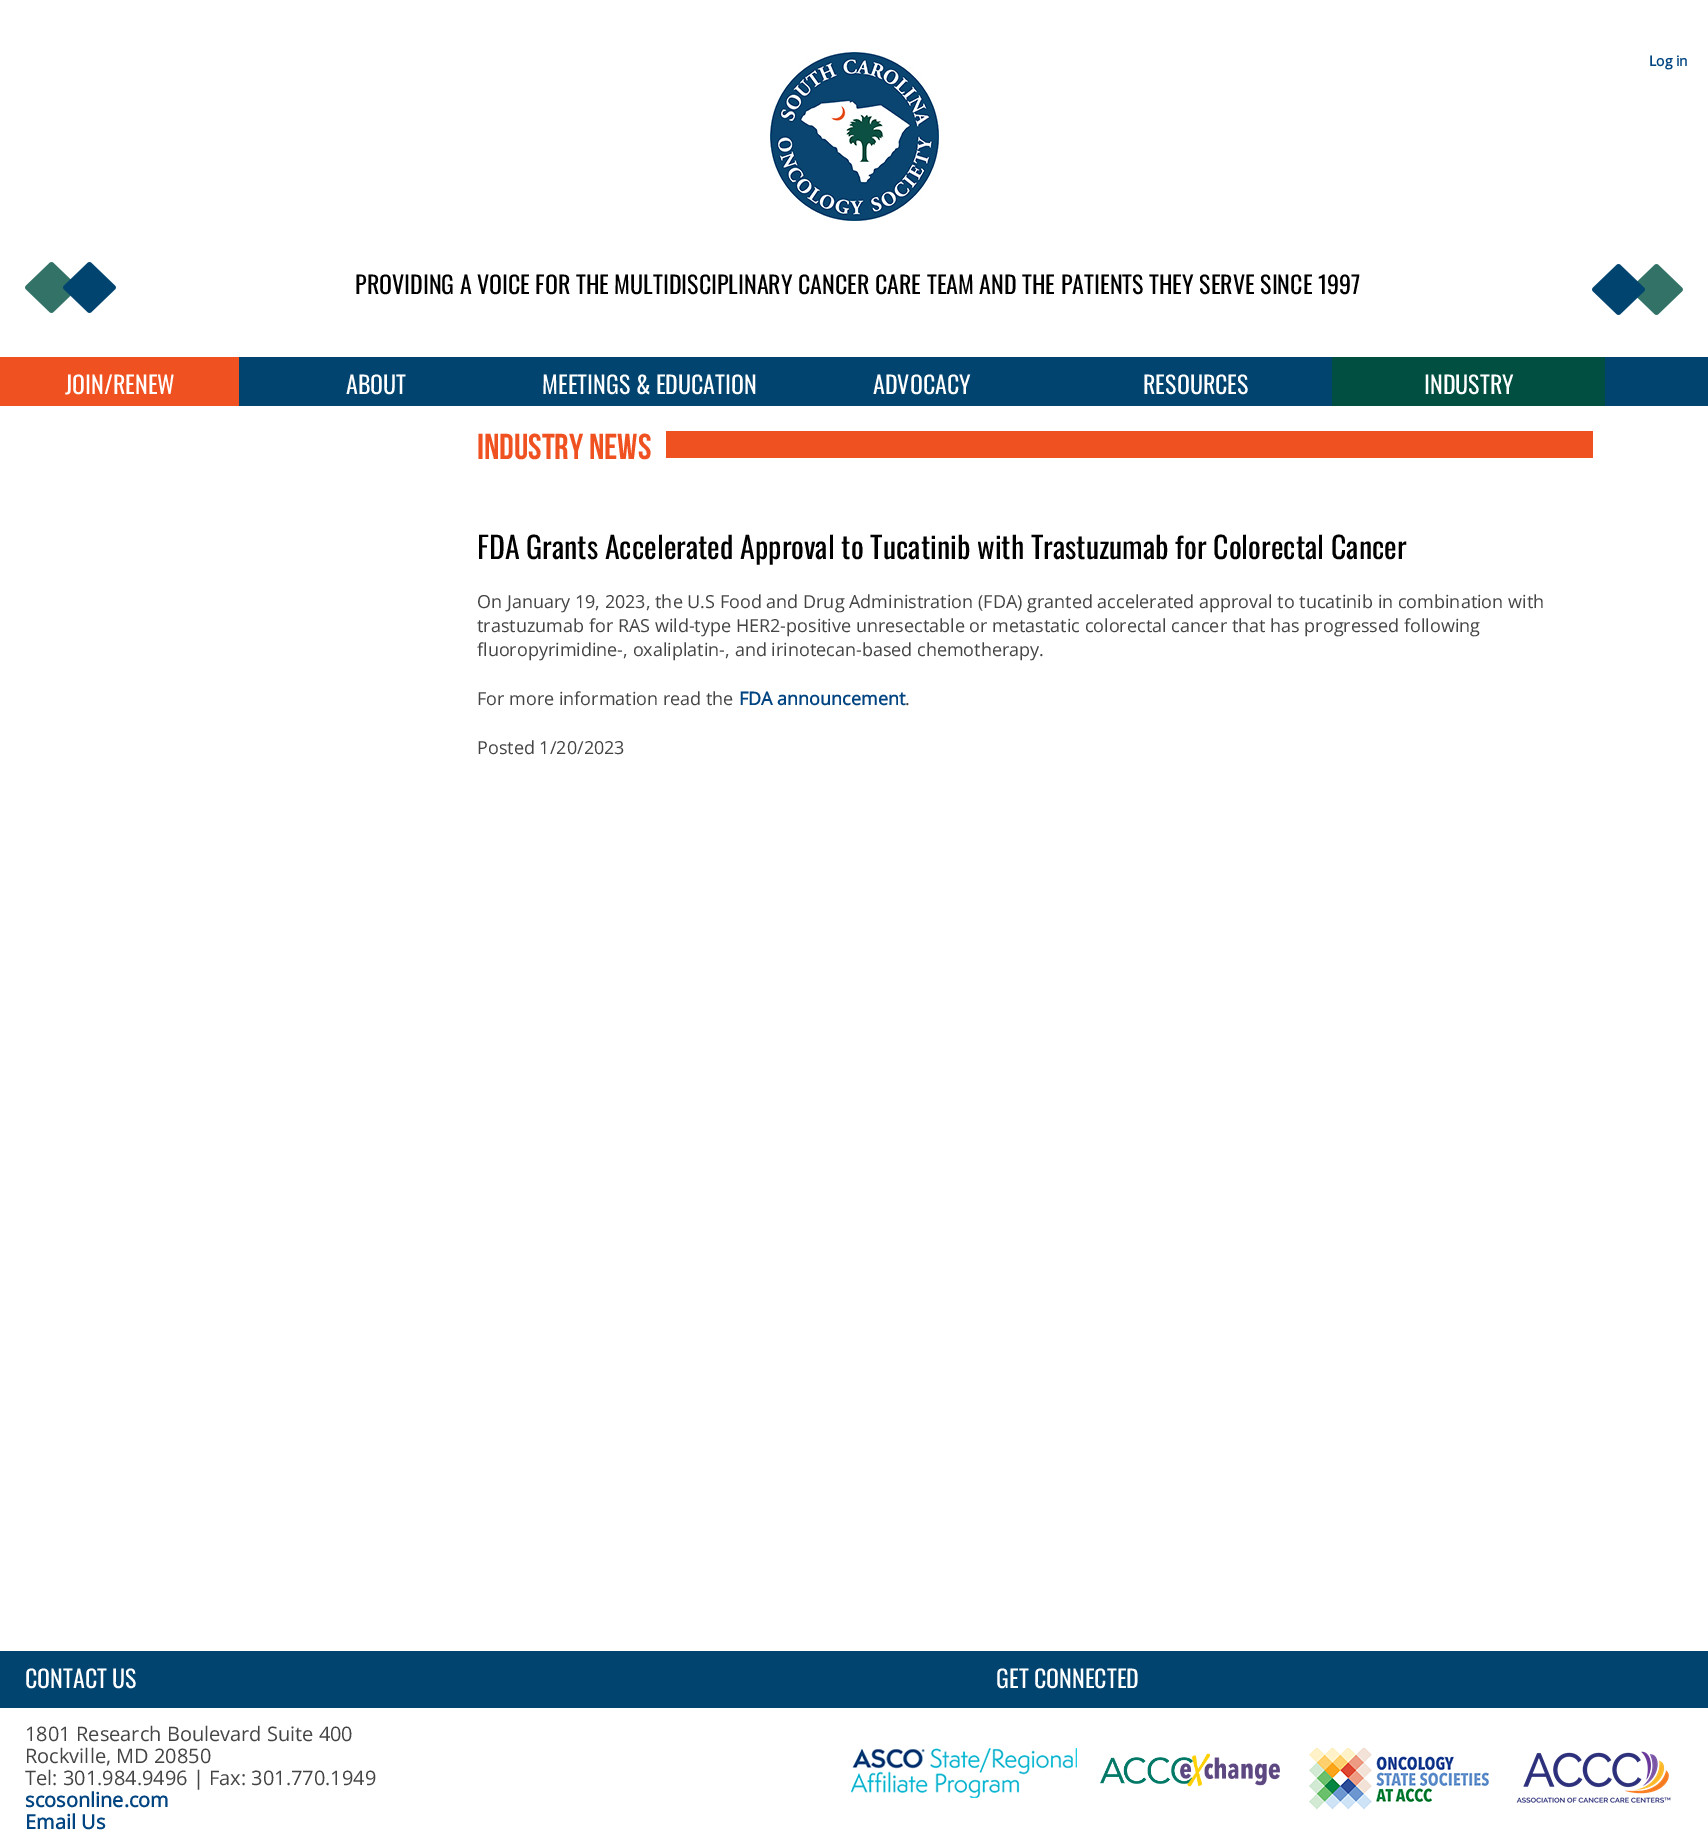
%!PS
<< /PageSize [1708 1835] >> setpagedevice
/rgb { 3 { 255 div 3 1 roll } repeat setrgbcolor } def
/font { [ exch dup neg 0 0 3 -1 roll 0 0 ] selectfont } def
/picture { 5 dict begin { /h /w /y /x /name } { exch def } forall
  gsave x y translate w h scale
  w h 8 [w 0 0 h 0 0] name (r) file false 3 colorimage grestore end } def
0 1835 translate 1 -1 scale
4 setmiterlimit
255 255 255 rgb
0 0 1708 1835 rectfill
(img/1.rgb) 770 52 169 172 picture
(img/2.rgb) 25 262 91 51 picture
(img/3.rgb) 1592 264 91 51 picture
[
  [239 357 1469 49 1 68 112]
  [0 357 239 49 240 81 32]
  [1332 357 273 49 0 79 65]
  [666 431 927 27 240 81 32]
  [0 1651 1708 57 1 68 112]
] { aload pop rgb rectfill } forall
(img/4.rgb) 851 1748 226 50 picture
(img/5.rgb) 1100 1753 180 34 picture
(img/6.rgb) 1309 1748 180 62 picture
(img/7.rgb) 1516 1751 155 52 picture
/OpenSans-Bold 14 font
0 68 129 rgb
1649 66 moveto (Log in) show
/Oswald-Regular 24 font
0 0 0 rgb
355 294 moveto (PROVIDING A VOICE FOR THE MULTIDISCIPLINARY CANCER CARE TEAM AND THE PATIENTS THEY SERVE SINCE 1997) show
255 255 255 rgb
[
  [(JOIN/RENEW) 65 394]
  [(ABOUT) 346 394]
  [(MEETINGS & EDUCATION) 542 394]
  [(ADVOCACY) 873 394]
  [(RESOURCES) 1143 394]
  [(INDUSTRY) 1424 394]
] { aload pop moveto show } forall
/BebasNeue-Regular 36 font
240 81 32 rgb
477 459 moveto (Industry News) show
/Oswald-Regular 30 font
0 0 0 rgb
477 559 moveto (FDA Grants Accelerated Approval to Tucatinib with Trastuzumab for Colorectal Cancer) show
/OpenSans-Regular 18 font
68 68 68 rgb
[
  [(On January 19, 2023, the U.S Food and Drug Administration \(FDA\) granted accelerated approval to tucatinib in combination with) 477 608]
  [(trastuzumab for RAS wild-type HER2-positive unresectable or metastatic colorectal cancer that has progressed following) 477 632]
  [(fluoropyrimidine-, oxaliplatin-, and irinotecan-based chemotherapy.) 477 656]
  [(For more information read the) 477 705]
] { aload pop moveto show } forall
/OpenSans-Bold 18 font
0 68 129 rgb
739 705 moveto (FDA announcement) show
/OpenSans-Regular 18 font
68 68 68 rgb
905 705 moveto (.) show
477 754 moveto (Posted 1/20/2023) show
/Oswald-Regular 24 font
255 255 255 rgb
25 1688 moveto (CONTACT US) show
996 1688 moveto (GET CONNECTED) show
/OpenSans-Regular 20 font
68 68 68 rgb
[
  [(1801 Research Boulevard Suite 400) 25 1741]
  [(Rockville, MD 20850) 25 1763]
  [(Tel: 301.984.9496 | Fax: 301.770.1949) 25 1785]
] { aload pop moveto show } forall
/OpenSans-Bold 20 font
0 68 129 rgb
25 1807 moveto (scosonline.com) show
25 1829 moveto (Email Us) show
showpage
